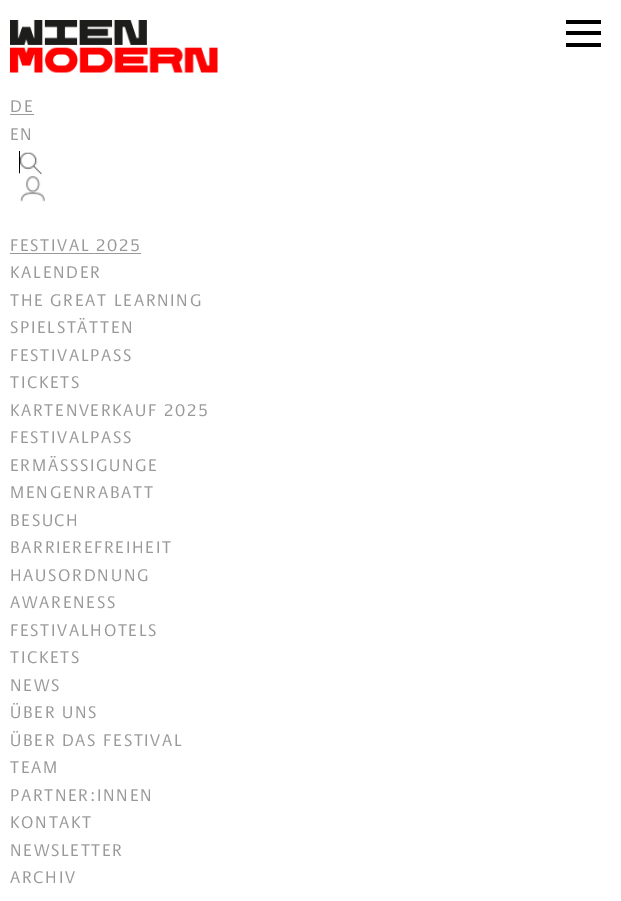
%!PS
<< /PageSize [621 901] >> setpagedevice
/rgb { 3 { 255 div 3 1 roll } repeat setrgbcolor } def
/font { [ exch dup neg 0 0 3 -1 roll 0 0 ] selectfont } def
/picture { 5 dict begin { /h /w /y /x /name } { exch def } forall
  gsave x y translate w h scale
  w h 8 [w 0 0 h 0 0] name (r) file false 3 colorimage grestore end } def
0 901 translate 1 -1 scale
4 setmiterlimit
255 255 255 rgb
0 0 621 901 rectfill
[
  [566 20 35 4 0 0 0]
  [566 31 35 4 0 0 0]
  [566 43 35 4 0 0 0]
] { aload pop rgb rectfill } forall
(img/1.rgb) 10 20 208 53 picture
153 153 153 rgb
10 114 24 1 rectfill
gsave
10 151 10 24 rectclip
0 0 0 rgb
19.5 150.5 231 22 rectstroke
grestore
(img/2.rgb) 20 152 23 23 picture
(img/3.rgb) 20 176 25 26 picture
10 253 131 1 rectfill
/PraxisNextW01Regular-Regular 17.5 font
10 112 moveto 1.75 0 (DE) ashow
10 140 moveto 1.75 0 (EN) ashow
10 251 moveto 1.75 0 (FESTIVAL 2025) ashow
10 278 moveto 1.75 0 (KALENDER) ashow
10 306 moveto 1.75 0 (THE GREAT LEARNING) ashow
10 333 moveto 1.75 0 (SPIELSTÄTTEN) ashow
10 361 moveto 1.75 0 (FESTIVALPASS) ashow
10 388 moveto 1.75 0 (TICKETS) ashow
10 416 moveto 1.75 0 (KARTENVERKAUF 2025) ashow
10 443 moveto 1.75 0 (FESTIVALPASS) ashow
10 471 moveto 1.75 0 (ERMÄSSSIGUNGE) ashow
10 498 moveto 1.75 0 (MENGENRABATT) ashow
10 526 moveto 1.75 0 (BESUCH) ashow
10 553 moveto 1.75 0 (BARRIEREFREIHEIT) ashow
10 581 moveto 1.75 0 (HAUSORDNUNG) ashow
10 608 moveto 1.75 0 (AWARENESS) ashow
10 636 moveto 1.75 0 (FESTIVALHOTELS) ashow
10 663 moveto 1.75 0 (TICKETS) ashow
10 691 moveto 1.75 0 (NEWS) ashow
10 718 moveto 1.75 0 (ÜBER UNS) ashow
10 746 moveto 1.75 0 (ÜBER DAS FESTIVAL) ashow
10 773 moveto 1.75 0 (TEAM) ashow
10 801 moveto 1.75 0 (PARTNER:INNEN) ashow
10 828 moveto 1.75 0 (KONTAKT) ashow
10 856 moveto 1.75 0 (NEWSLETTER) ashow
10 883 moveto 1.75 0 (ARCHIV) ashow
showpage
